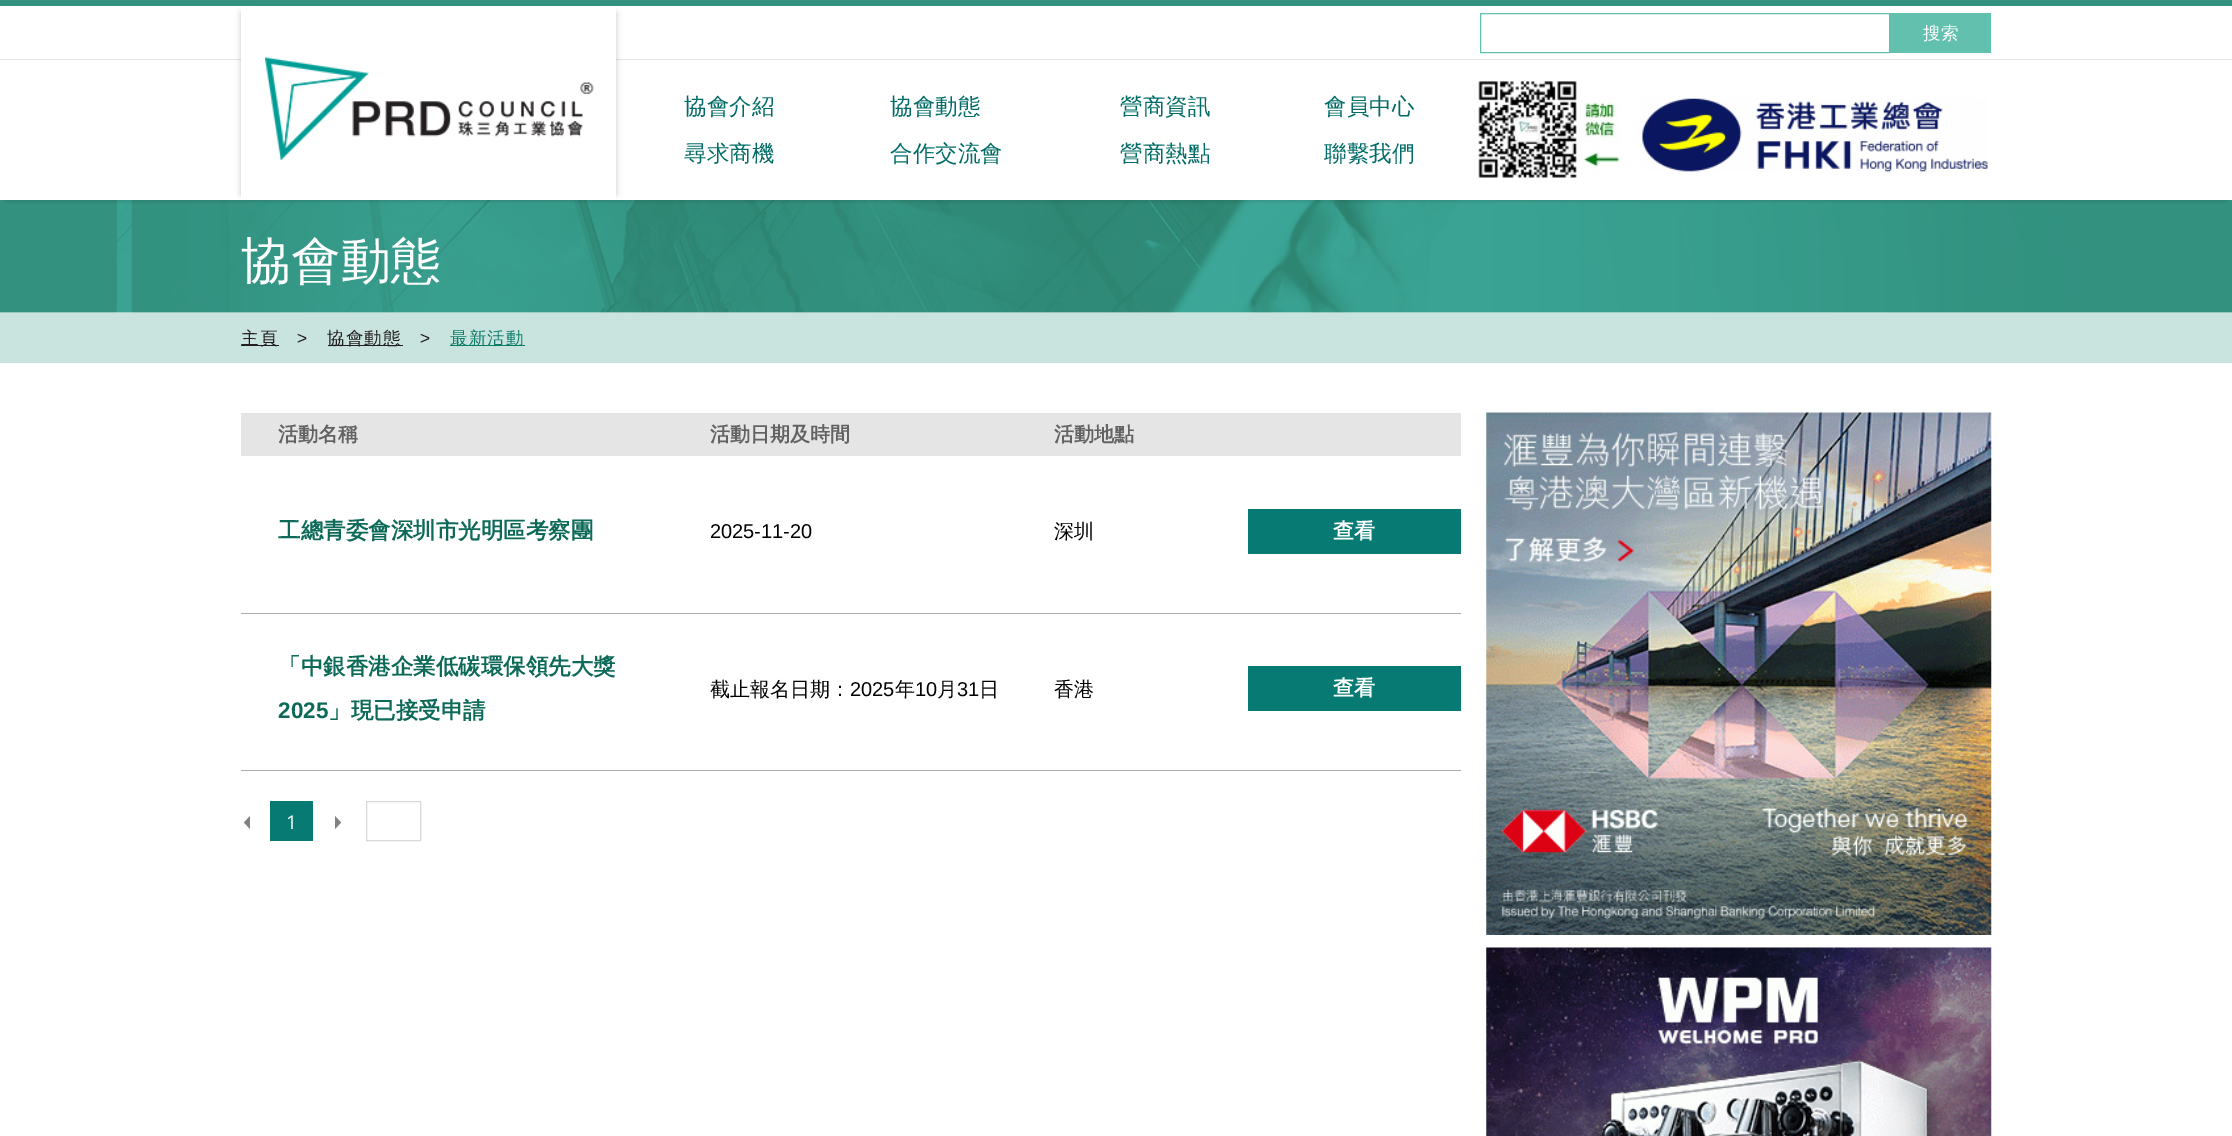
%!PS
<< /PageSize [2232 1136] /PageUsesTransparency true >> setpagedevice
/rgb { 3 { 255 div 3 1 roll } repeat setrgbcolor } def
/font { [ exch dup neg 0 0 3 -1 roll 0 0 ] selectfont } def
/alpha { dup .setfillconstantalpha .setstrokeconstantalpha } def
/roundrect { 5 dict begin { /r /h /w /y /x } { exch def } forall
  x r add y moveto x w add y 2 copy h add r arct x w add y h add x 1 index r arct
  x y h add x y r arct x y 2 copy exch w add exch r arct closepath end } def
/shadow { 12 dict begin { /a /b /q /h /w /y /x } { exch def } forall gsave /was 0 def
  9 -2 -9 { dup b mul 4 div /e exch def 1 sub .425 mul 2.718 exch exp 1 add a .99 .min exch div /now exch def
    1 1 now sub 1 was sub div sub alpha /was now def
    w h .min e 2 mul add 0 gt { x e sub y e sub w e 2 mul add h e 2 mul add
      q e add b .6 mul add w h .min 2 div e add .min 0 .max roundrect fill } if } for grestore end } def
/picture { 5 dict begin { /h /w /y /x /name } { exch def } forall
  gsave x y translate w h scale
  w h 8 [w 0 0 h 0 0] name (r) file false 3 colorimage grestore end } def
0 .pushpdf14devicefilter
0 1136 translate 1 -1 scale
4 setmiterlimit
255 255 255 rgb
0 0 2232 1136 rectfill
50 145 127 rgb
0 0 2232 6 rectfill
229 229 229 rgb
0 59 2232 1 rectfill
98 193 174 rgb
1480.5 13.5 409 39 rectstroke
1890 13 101 40 rectfill
(img/4.rgb) 0 200 2232 113 picture
gsave
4 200 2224 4 rectclip
4 4 4 rgb
6 73 2220 127 0 3 0.22 shadow
grestore
4 4 4 rgb
254 13 362 181 0 3 0.22 shadow
241 13 363 181 0 3 0.22 shadow
255 255 255 rgb
241 7 375 193 rectfill
(img/1.rgb) 265 57 329 103 picture
(img/2.rgb) 1478 81 142 97 picture
(img/3.rgb) 1642 98 346 74 picture
[
  [0 313 2232 50 201 228 223]
  [241 345 38 1 35 31 32]
  [328 345 75 1 35 31 32]
  [450 345 75 1 11 125 103]
  [241 413 1220 43 229 229 229]
  [241 613 1220 1 172 172 172]
  [1248 509 213 45 7 122 116]
  [241 770 1220 1 172 172 172]
  [1248 666 213 45 7 122 116]
] { aload pop rgb rectfill } forall
130 130 130 rgb
250 816 moveto 250 829 lineto 244 822.5 lineto closepath fill
7 122 116 rgb
270 801 43 40 rectfill
130 130 130 rgb
335 829 moveto 335 816 lineto 341 822.5 lineto closepath fill
216 216 216 rgb
366.5 801.5 54 39 rectstroke
(img/5.rgb) 1486 412 506 523 picture
(img/6.rgb) 1486 947 506 189 picture
/WenQuanYiZenHei-Medium 17.5 font
255 255 255 rgb
1923 39 moveto (搜索) show
/WenQuanYiZenHei-Medium 22.5 font
1 108 103 rgb
[
  [(協會介紹) 684 114]
  [(協會動態) 890 114]
  [(營商資訊) 1120 114]
  [(會員中心) 1324 114]
  [(尋求商機) 684 161]
  [(合作交流會) 890 161]
  [(營商熱點) 1120 161]
  [(聯繫我們) 1324 161]
] { aload pop moveto show } forall
/WenQuanYiZenHei-Medium 50 font
255 255 255 rgb
241 278 moveto (協會動態) show
/WenQuanYiZenHei-Medium 17.5 font
35 31 32 rgb
241 344 moveto 1 0 (主頁) ashow
/LiberationSans-Regular 17.5 font
297 344 moveto 1 0 (>) ashow
/WenQuanYiZenHei-Medium 17.5 font
327 344 moveto 1 0 (協會動態) ashow
/LiberationSans-Regular 17.5 font
420 344 moveto 1 0 (>) ashow
/WenQuanYiZenHei-Medium 17.5 font
11 125 103 rgb
450 344 moveto 1 0 (最新活動) ashow
/WenQuanYiZenHei-Bold 20 font
98 98 98 rgb
[
  [(活動名稱) 278 441]
  [(活動日期及時間) 710 441]
  [(活動地點) 1054 441]
] { aload pop moveto show } forall
/WenQuanYiZenHei-Bold 22.5 font
13 105 88 rgb
278 538 moveto (工總青委會深圳市光明區考察團) show
/LiberationSans-Regular 20 font
0 0 0 rgb
710 538 moveto (2025-11-20) show
/WenQuanYiZenHei-Medium 20 font
1054 538 moveto (深圳) show
/WenQuanYiZenHei-Bold 21 font
255 255 255 rgb
1333 538 moveto (查看) show
/WenQuanYiZenHei-Bold 22.5 font
13 105 88 rgb
278 674 moveto (「中銀香港企業低碳環保領先大獎) show
/LiberationSans-Bold 22.5 font
278 718 moveto (2025) show
/WenQuanYiZenHei-Bold 22.5 font
328 718 moveto (」現已接受申請) show
/WenQuanYiZenHei-Medium 20 font
0 0 0 rgb
710 696 moveto (截止報名日期：) show
/LiberationSans-Regular 20 font
850 696 moveto (2025) show
/WenQuanYiZenHei-Medium 20 font
895 696 moveto (年) show
/LiberationSans-Regular 20 font
915 696 moveto (10) show
/WenQuanYiZenHei-Medium 20 font
937 696 moveto (月) show
/LiberationSans-Regular 20 font
957 696 moveto (31) show
/WenQuanYiZenHei-Medium 20 font
979 696 moveto (日) show
1054 696 moveto (香港) show
/WenQuanYiZenHei-Bold 21 font
255 255 255 rgb
1333 695 moveto (查看) show
/OpenSans-Regular 19 font
286 829 moveto (1) show
.poppdf14devicefilter showpage
